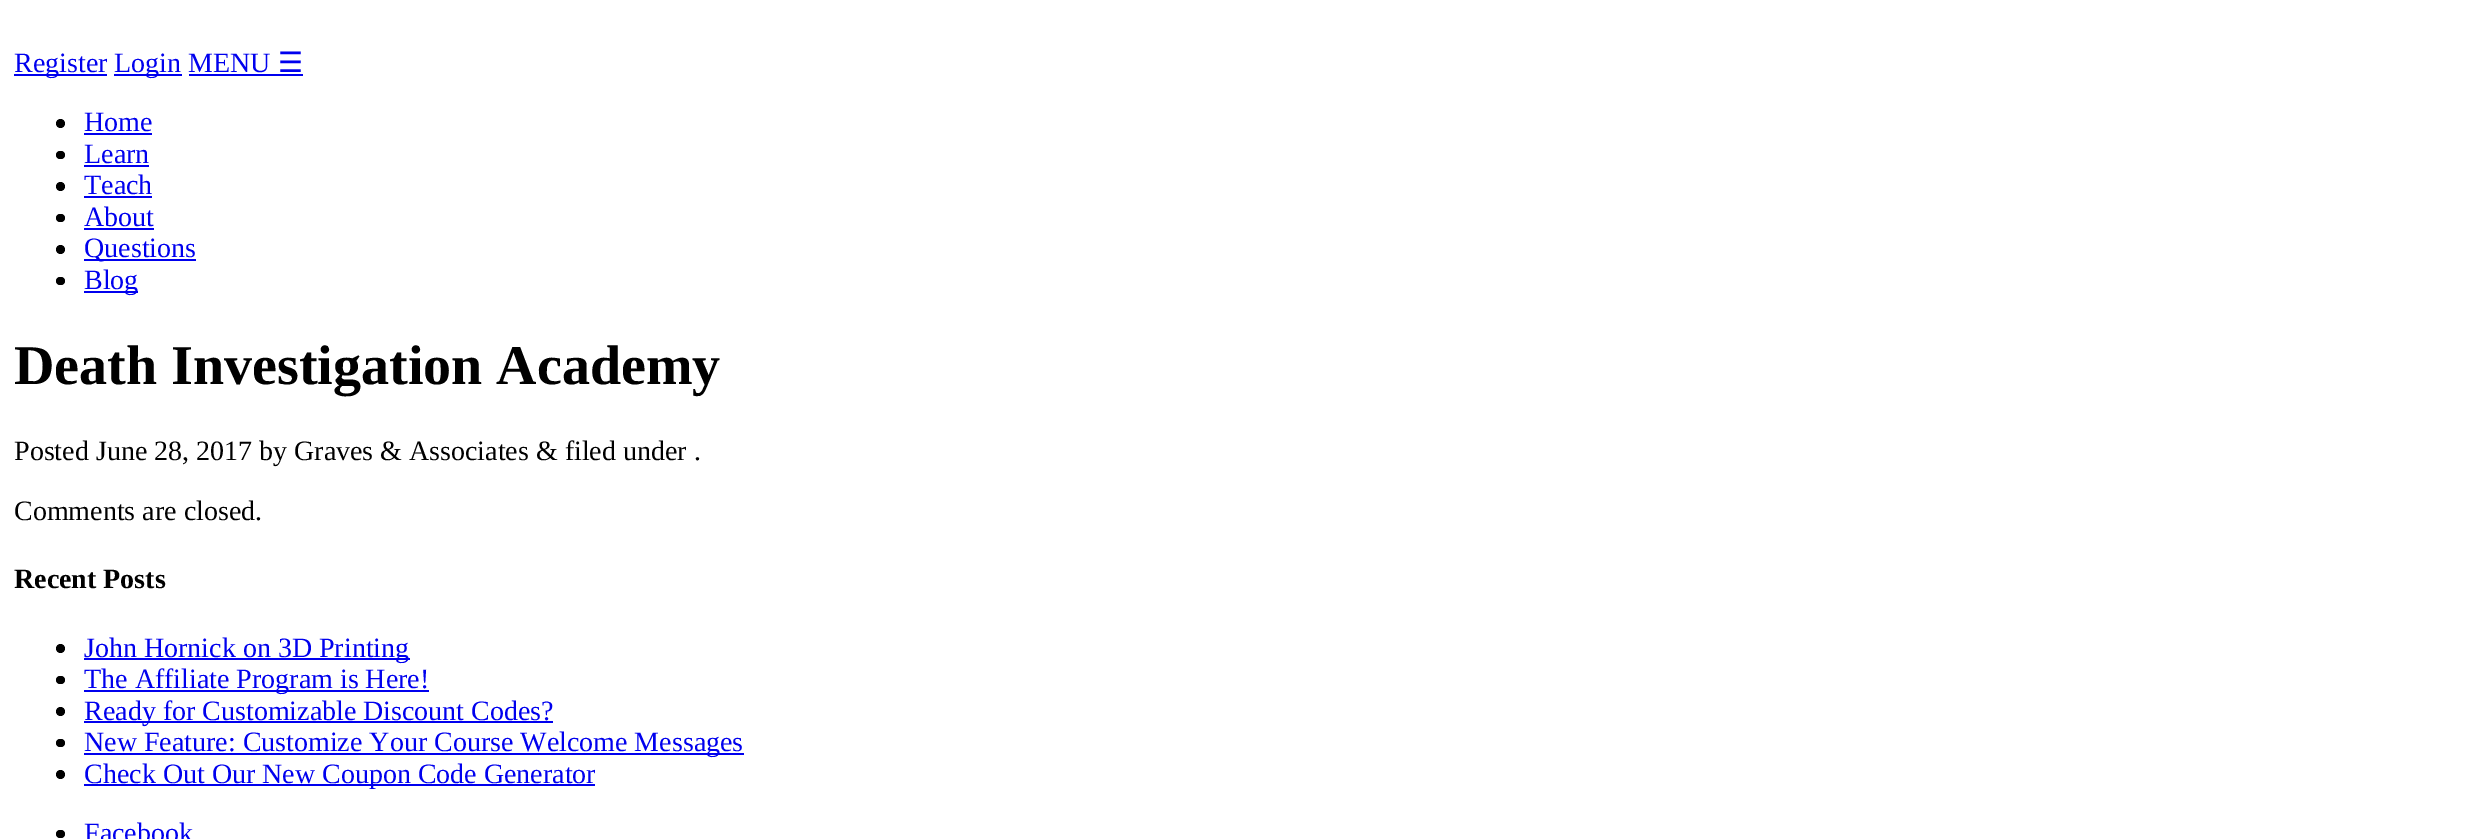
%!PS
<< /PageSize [2469 839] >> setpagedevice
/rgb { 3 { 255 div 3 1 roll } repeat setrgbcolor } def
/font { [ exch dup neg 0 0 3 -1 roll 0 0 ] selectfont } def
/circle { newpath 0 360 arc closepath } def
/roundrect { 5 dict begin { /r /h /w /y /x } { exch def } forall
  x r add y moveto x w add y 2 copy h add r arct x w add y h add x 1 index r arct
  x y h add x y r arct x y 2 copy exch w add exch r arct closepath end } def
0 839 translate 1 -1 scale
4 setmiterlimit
255 255 255 rgb
0 0 2469 839 rectfill
[
  [14 74 93 2 0 0 238]
  [114 74 68 2 0 0 238]
  [189 74 114 2 0 0 238]
] { aload pop rgb rectfill } forall
0 0 0 rgb
60.5 123.5 4.5 circle fill
0 0 238 rgb
84 133 68 2 rectfill
0 0 0 rgb
56 151 9 8 4 roundrect fill
0 0 238 rgb
84 165 65 2 rectfill
0 0 0 rgb
60.5 186.5 4.5 circle fill
0 0 238 rgb
84 196 68 2 rectfill
0 0 0 rgb
56 214 9 8 4 roundrect fill
0 0 238 rgb
84 228 70 2 rectfill
0 0 0 rgb
60.5 249.5 4.5 circle fill
0 0 238 rgb
84 259 112 2 rectfill
0 0 0 rgb
56 277 9 8 4 roundrect fill
0 0 238 rgb
84 291 54 2 rectfill
0 0 0 rgb
60.5 648.5 4.5 circle fill
0 0 238 rgb
84 658 326 2 rectfill
0 0 0 rgb
56 676 9 8 4 roundrect fill
0 0 238 rgb
84 690 345 2 rectfill
0 0 0 rgb
60.5 711.5 4.5 circle fill
0 0 238 rgb
84 721 469 2 rectfill
0 0 0 rgb
56 739 9 8 4 roundrect fill
0 0 238 rgb
84 753 660 2 rectfill
0 0 0 rgb
60.5 774.5 4.5 circle fill
0 0 238 rgb
84 784 511 2 rectfill
0 0 0 rgb
56 830 9 8 4 roundrect fill
/LiberationSerif-Regular 28 font
0 0 238 rgb
14 72 moveto (Register) show
114 72 moveto (Login MENU) show
/DejaVuSans-Regular 28 font
278 72 moveto (☰) show
/LiberationSerif-Regular 28 font
[
  [(Home) 84 131]
  [(Learn) 84 163]
  [(Teach) 84 194]
  [(About) 84 226]
  [(Questions) 84 257]
  [(Blog) 84 289]
] { aload pop moveto show } forall
/LiberationSerif-Bold 56 font
0 0 0 rgb
14 384 moveto (Death Investigation Academy) show
/LiberationSerif-Regular 28 font
14 460 moveto (Posted June 28, 2017 by Graves & Associates & filed under .) show
14 520 moveto (Comments are closed.) show
/LiberationSerif-Bold 28 font
14 588 moveto (Recent Posts) show
/LiberationSerif-Regular 28 font
0 0 238 rgb
[
  [(John Hornick on 3D Printing) 84 657]
  [(The Affiliate Program is Here!) 84 688]
  [(Ready for Customizable Discount Codes?) 84 720]
  [(New Feature: Customize Your Course Welcome Messages) 84 751]
  [(Check Out Our New Coupon Code Generator) 84 783]
  [(Facebook) 84 842]
] { aload pop moveto show } forall
showpage
